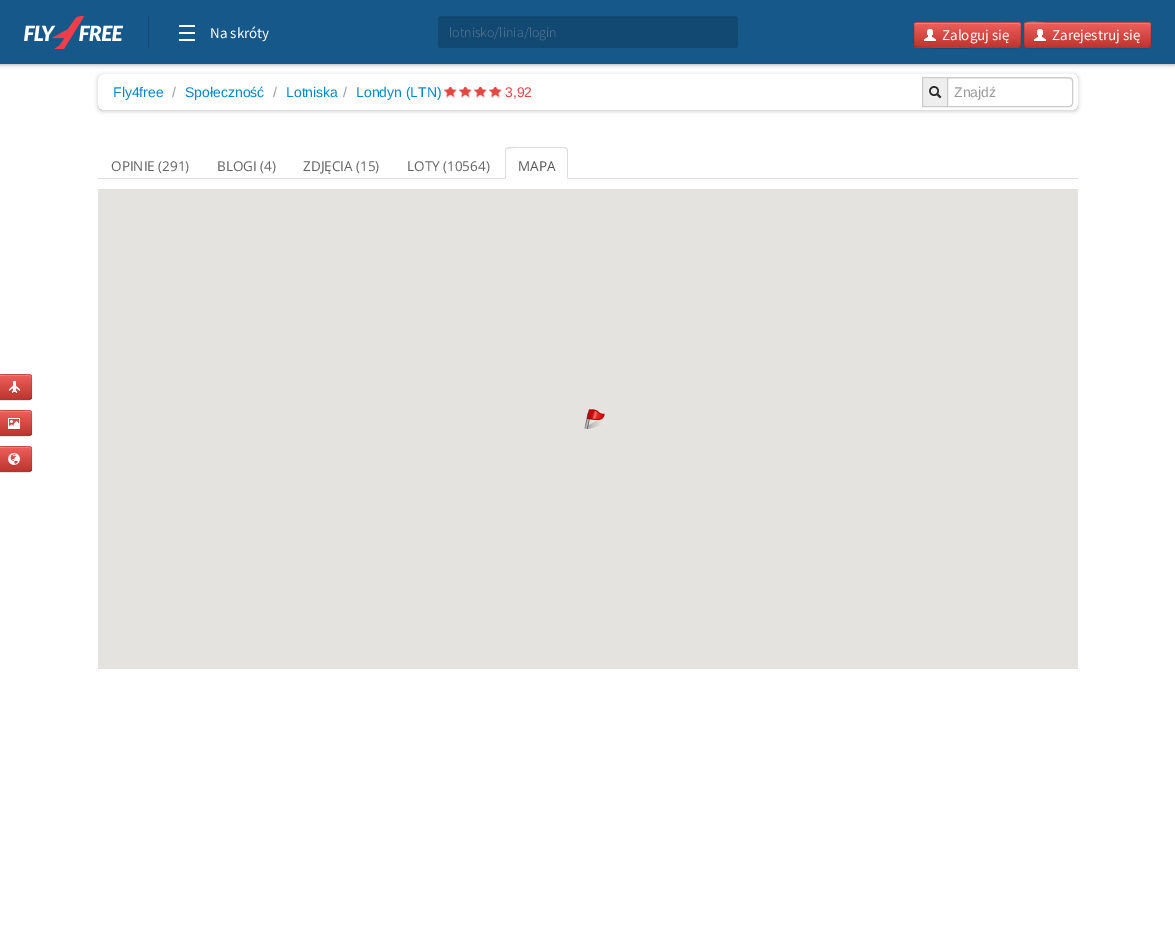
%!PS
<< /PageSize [1175 934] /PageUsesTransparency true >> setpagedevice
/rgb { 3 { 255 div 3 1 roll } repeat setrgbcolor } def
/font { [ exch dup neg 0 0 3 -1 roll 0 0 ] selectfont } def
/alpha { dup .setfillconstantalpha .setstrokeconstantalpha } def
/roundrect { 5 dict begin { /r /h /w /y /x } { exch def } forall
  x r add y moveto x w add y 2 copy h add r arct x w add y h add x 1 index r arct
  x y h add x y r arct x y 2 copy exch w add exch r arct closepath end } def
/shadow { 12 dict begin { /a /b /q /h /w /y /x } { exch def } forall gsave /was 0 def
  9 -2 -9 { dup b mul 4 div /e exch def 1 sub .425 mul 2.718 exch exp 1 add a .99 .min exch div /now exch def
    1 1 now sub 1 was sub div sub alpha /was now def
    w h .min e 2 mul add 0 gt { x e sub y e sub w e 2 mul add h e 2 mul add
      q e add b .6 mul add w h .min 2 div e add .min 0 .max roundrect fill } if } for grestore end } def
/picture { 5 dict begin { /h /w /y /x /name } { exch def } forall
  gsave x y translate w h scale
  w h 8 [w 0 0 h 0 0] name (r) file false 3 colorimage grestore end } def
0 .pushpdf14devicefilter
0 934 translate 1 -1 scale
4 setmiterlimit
255 255 255 rgb
0 0 1175 934 rectfill
0 0 0 rgb
0 0 1175 64 0 2.5 0.4 shadow
23 88 138 rgb
0 0 1175 64 rectfill
(img/1.rgb) 24 16 99 33 picture
19 74 116 rgb
148 16 1 32 rectfill
255 255 255 rgb
179 39 16 2 1 roundrect fill
179 25 16 2 1 roundrect fill
179 32 16 2 1 roundrect fill
18 73 115 rgb
438 16 300 32 3 roundrect fill
17 68 106 rgb
441 18 moveto 735 18 lineto 736 18 737 19 737 20 curveto 737 19 737 17 735 17 curveto 440 17 lineto 439 20 lineto 439 19 440 18 441 18 curveto closepath fill
218 79 73 rgb
914 22 107 26 3 roundrect fill
gsave
914 22 107 26 3 roundrect clip newpath
gsave 914 23 moveto 1021 23 lineto 1021 47 lineto 914 47 lineto closepath clip newpath
<< /ShadingType 2 /ColorSpace /DeviceRGB /Coords [968 23 968 47] /Extend [true true] /Function << /FunctionType 2 /Domain [0 1] /C0 [0.933 0.373 0.357] /C1 [0.741 0.212 0.184] /N 1 >> >> shfill grestore
grestore
241 126 123 rgb
917 24 moveto 1018 24 lineto 1019 24 1020 25 1020 26 curveto 1020 25 1020 23 1018 23 curveto 917 23 lineto 915 23 915 25 915 26 curveto 915 25 916 24 917 24 curveto closepath fill
0.25 alpha
0 0 0 rgb
1020 47 moveto 1018 47.5 lineto 1001 47.5 lineto 992.5 47.5 917.5 48.5 915.5 47 curveto 915 47 lineto stroke
0.1 alpha
915 47 moveto 913.5 45 914.5 37.5 914.5 35 curveto 914.5 18 913 22.5 934 22.5 curveto 1001 22.5 lineto 1022 22.5 1020.5 18 1020.5 35 curveto 1020.5 37.5 1021.5 45 1020 47 curveto stroke
1 alpha
(img/2.rgb) 924 29 12 13 picture
218 79 73 rgb
1024 22 127 26 3 roundrect fill
gsave
1024 22 127 26 3 roundrect clip newpath
gsave 1024 23 moveto 1151 23 lineto 1151 47 lineto 1024 47 lineto closepath clip newpath
<< /ShadingType 2 /ColorSpace /DeviceRGB /Coords [1088 23 1088 47] /Extend [true true] /Function << /FunctionType 2 /Domain [0 1] /C0 [0.933 0.373 0.357] /C1 [0.741 0.212 0.184] /N 1 >> >> shfill grestore
grestore
0.2 alpha
255 255 255 rgb
1027 24 moveto 1148 24 lineto 1150 25 lineto 1150 26 lineto 1150 25 1150 24 1149 23 curveto 1047 23 lineto 1041 23 1025 18 1025 26 curveto 1025 25 1026 24 1027 24 curveto closepath fill
0.25 alpha
0 0 0 rgb
1150 47 moveto 1148 47.5 lineto 1027 47.5 lineto 1025 47 lineto stroke
0.1 alpha
1025 47 moveto 1023.5 45 1024.5 37.5 1024.5 35 curveto 1024.5 28.5 lineto 1024.5 26.5 1024 22.5 1027 22.5 curveto 1148 22.5 lineto 1151 22.5 1150.5 26.5 1150.5 28.5 curveto 1150.5 35 lineto 1150.5 37.5 1151.5 45 1150 47 curveto stroke
1 alpha
(img/2.rgb) 1034 29 12 13 picture
gsave
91 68 moveto 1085 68 lineto 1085 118 lineto 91 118 lineto closepath 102 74 moveto 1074 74 lineto 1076 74 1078 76 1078 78 curveto 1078 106 lineto 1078 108 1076 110 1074 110 curveto 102 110 lineto 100 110 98 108 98 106 curveto 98 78 lineto 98 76 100 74 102 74 curveto closepath eoclip newpath
98 75 980 36 4 2 0.22 shadow
grestore
(img/3.rgb) 444 87 13 11 picture
(img/3.rgb) 459 87 13 11 picture
(img/3.rgb) 474 87 13 11 picture
(img/3.rgb) 489 87 13 11 picture
238 238 238 rgb
922.5 77.5 moveto 947.5 77.5 lineto 947.5 106.5 lineto 922.5 106.5 lineto closepath gsave fill grestore
204 204 204 rgb
stroke
(img/4.rgb) 929 86 13 13 picture
255 255 255 rgb
947 77 moveto 1069 77 lineto 1071 77 1073 79 1073 81 curveto 1073 103 lineto 1073 105 1071 107 1069 107 curveto 947 107 lineto closepath fill
236 236 236 rgb
948 79 moveto 1069 79 lineto 1071 79 1072 80 1072 82 curveto 1072 81 lineto 1072 79 1071 78 1069 78 curveto 948 78 lineto closepath fill
204 204 204 rgb
947.5 77.5 moveto 1069 77.5 lineto 1071 77.5 1072.5 79 1072.5 81 curveto 1072.5 103 lineto 1072.5 105 1071 106.5 1069 106.5 curveto 947.5 106.5 lineto closepath stroke
221 221 221 rgb
98 178 980 1 rectfill
255 255 255 rgb
509 147 moveto 564 147 lineto 566 147 568 149 568 151 curveto 568 179 lineto 505 179 lineto 505 151 lineto 505 149 507 147 509 147 curveto closepath fill
221 221 221 rgb
509 147 moveto 506 148 lineto 507 149 lineto 509 147 559 148 564 148 curveto 566 149 lineto 567 148 lineto 564 147 lineto closepath fill
568 179 moveto 568 151 lineto 568 150 567.5 149 567 148 curveto 566 149 lineto 567 149 567 150 567 151 curveto 567 178 lineto closepath 505 179 moveto 506 178 lineto 506 151 lineto 506 150 506 149 507 149 curveto 506 148 lineto 505.5 149 505 150 505 151 curveto closepath fill
229 227 223 rgb
98 189 980 480 rectfill
(img/5.rgb) 584 409 21 20 picture
0 0 0 rgb
-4 375 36 26 3 1 0.05 shadow
218 79 73 rgb
-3 374 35 26 3 roundrect fill
gsave
-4 374 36 26 3 roundrect clip newpath
gsave 0 375 moveto 32 375 lineto 32 399 lineto 0 399 lineto closepath clip newpath
<< /ShadingType 2 /ColorSpace /DeviceRGB /Coords [14 375 14 399] /Extend [true true] /Function << /FunctionType 2 /Domain [0 1] /C0 [0.933 0.373 0.357] /C1 [0.741 0.212 0.184] /N 1 >> >> shfill grestore
grestore
241 126 123 rgb
-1 376 moveto 29 376 lineto 30 376 31 377 31 378 curveto 31 373.5 28 375 24 375 curveto 4 375 lineto 0 375 -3 373.5 -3 378 curveto -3 377 -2 376 -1 376 curveto closepath fill
0.25 alpha
0 0 0 rgb
31 399 moveto 30.5 399 29.5 399.5 29 399.5 curveto -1 399.5 lineto -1.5 399.5 -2.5 399 -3 399 curveto stroke
0.1 alpha
-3 399 moveto -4 397.5 -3.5 395 -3.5 393.5 curveto -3.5 380.5 lineto -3.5 373.5 -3 374.5 4 374.5 curveto 24 374.5 lineto 31 374.5 31.5 373.5 31.5 380.5 curveto 31.5 393.5 lineto 31.5 395 32 397.5 31 399 curveto stroke
1 alpha
(img/6.rgb) 9 381 11 13 picture
-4 411 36 26 3 1 0.05 shadow
218 79 73 rgb
-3 410 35 26 3 roundrect fill
gsave
-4 410 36 26 3 roundrect clip newpath
gsave 0 411 moveto 32 411 lineto 32 435 lineto 0 435 lineto closepath clip newpath
<< /ShadingType 2 /ColorSpace /DeviceRGB /Coords [14 411 14 435] /Extend [true true] /Function << /FunctionType 2 /Domain [0 1] /C0 [0.933 0.373 0.357] /C1 [0.741 0.212 0.184] /N 1 >> >> shfill grestore
grestore
241 126 123 rgb
-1 412 moveto 29 412 lineto 30 412 31 413 31 414 curveto 31 409.5 28 411 24 411 curveto 4 411 lineto 0 411 -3 409.5 -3 414 curveto -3 413 -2 412 -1 412 curveto closepath fill
0.25 alpha
0 0 0 rgb
31 435 moveto 30.5 435 29.5 435.5 29 435.5 curveto -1 435.5 lineto -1.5 435.5 -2.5 435 -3 435 curveto stroke
0.1 alpha
-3 435 moveto -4 433.5 -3.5 431 -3.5 429.5 curveto -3.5 416.5 lineto -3.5 409.5 -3 410.5 4 410.5 curveto 24 410.5 lineto 31 410.5 31.5 409.5 31.5 416.5 curveto 31.5 429.5 lineto 31.5 431 32 433.5 31 435 curveto stroke
1 alpha
(img/7.rgb) 8 418 12 12 picture
-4 447 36 26 3 1 0.05 shadow
218 79 73 rgb
-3 446 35 26 3 roundrect fill
gsave
-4 446 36 26 3 roundrect clip newpath
gsave 0 447 moveto 32 447 lineto 32 471 lineto 0 471 lineto closepath clip newpath
<< /ShadingType 2 /ColorSpace /DeviceRGB /Coords [14 447 14 471] /Extend [true true] /Function << /FunctionType 2 /Domain [0 1] /C0 [0.933 0.373 0.357] /C1 [0.741 0.212 0.184] /N 1 >> >> shfill grestore
grestore
241 126 123 rgb
-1 448 moveto 29 448 lineto 30 448 31 449 31 450 curveto 31 445.5 28 447 24 447 curveto 4 447 lineto 0 447 -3 445.5 -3 450 curveto -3 449 -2 448 -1 448 curveto closepath fill
0.25 alpha
0 0 0 rgb
31 471 moveto 30.5 471 29.5 471.5 29 471.5 curveto -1 471.5 lineto -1.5 471.5 -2.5 471 -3 471 curveto stroke
0.1 alpha
-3 471 moveto -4 469.5 -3.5 467 -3.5 465.5 curveto -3.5 452.5 lineto -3.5 445.5 -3 446.5 4 446.5 curveto 24 446.5 lineto 31 446.5 31.5 445.5 31.5 452.5 curveto 31.5 465.5 lineto 31.5 467 32 469.5 31 471 curveto stroke
1 alpha
(img/8.rgb) 8 453 12 13 picture
/SourceSansPro-Regular 15 font
255 255 255 rgb
210 38 moveto (Na skróty) show
/SourceSansPro-Light 14 font
94 122 143 rgb
449 37 moveto (lotnisko/linia/login) show
/SourceSansPro-Regular 15 font
255 255 255 rgb
942 40 moveto (Zaloguj się) show
1052 40 moveto (Zarejestruj się) show
/LiberationSans-Regular 14 font
0 136 204 rgb
113 97 moveto (Fly4free) show
153 153 153 rgb
172 97 moveto (/) show
0 136 204 rgb
185 97 moveto (Społeczność) show
153 153 153 rgb
273 97 moveto (/) show
0 136 204 rgb
286 97 moveto (Lotniska) show
153 153 153 rgb
343 97 moveto (/) show
0 136 204 rgb
356 97 moveto (Londyn \(LTN\)) show
225 71 67 rgb
505 97 moveto (3,92) show
153 153 153 rgb
954 97 moveto (Znajdź) show
/OpenSans-Regular 13.5 font
99 99 99 rgb
[
  [(OPINIE \(291\)) 111 171]
  [(BLOGI \(4\)) 217 171]
  [(ZDJĘCIA \(15\)) 303 171]
  [(LOTY \(10564\)) 407 171]
] { aload pop moveto show } forall
85 85 85 rgb
518 171 moveto (MAPA) show
.poppdf14devicefilter showpage
